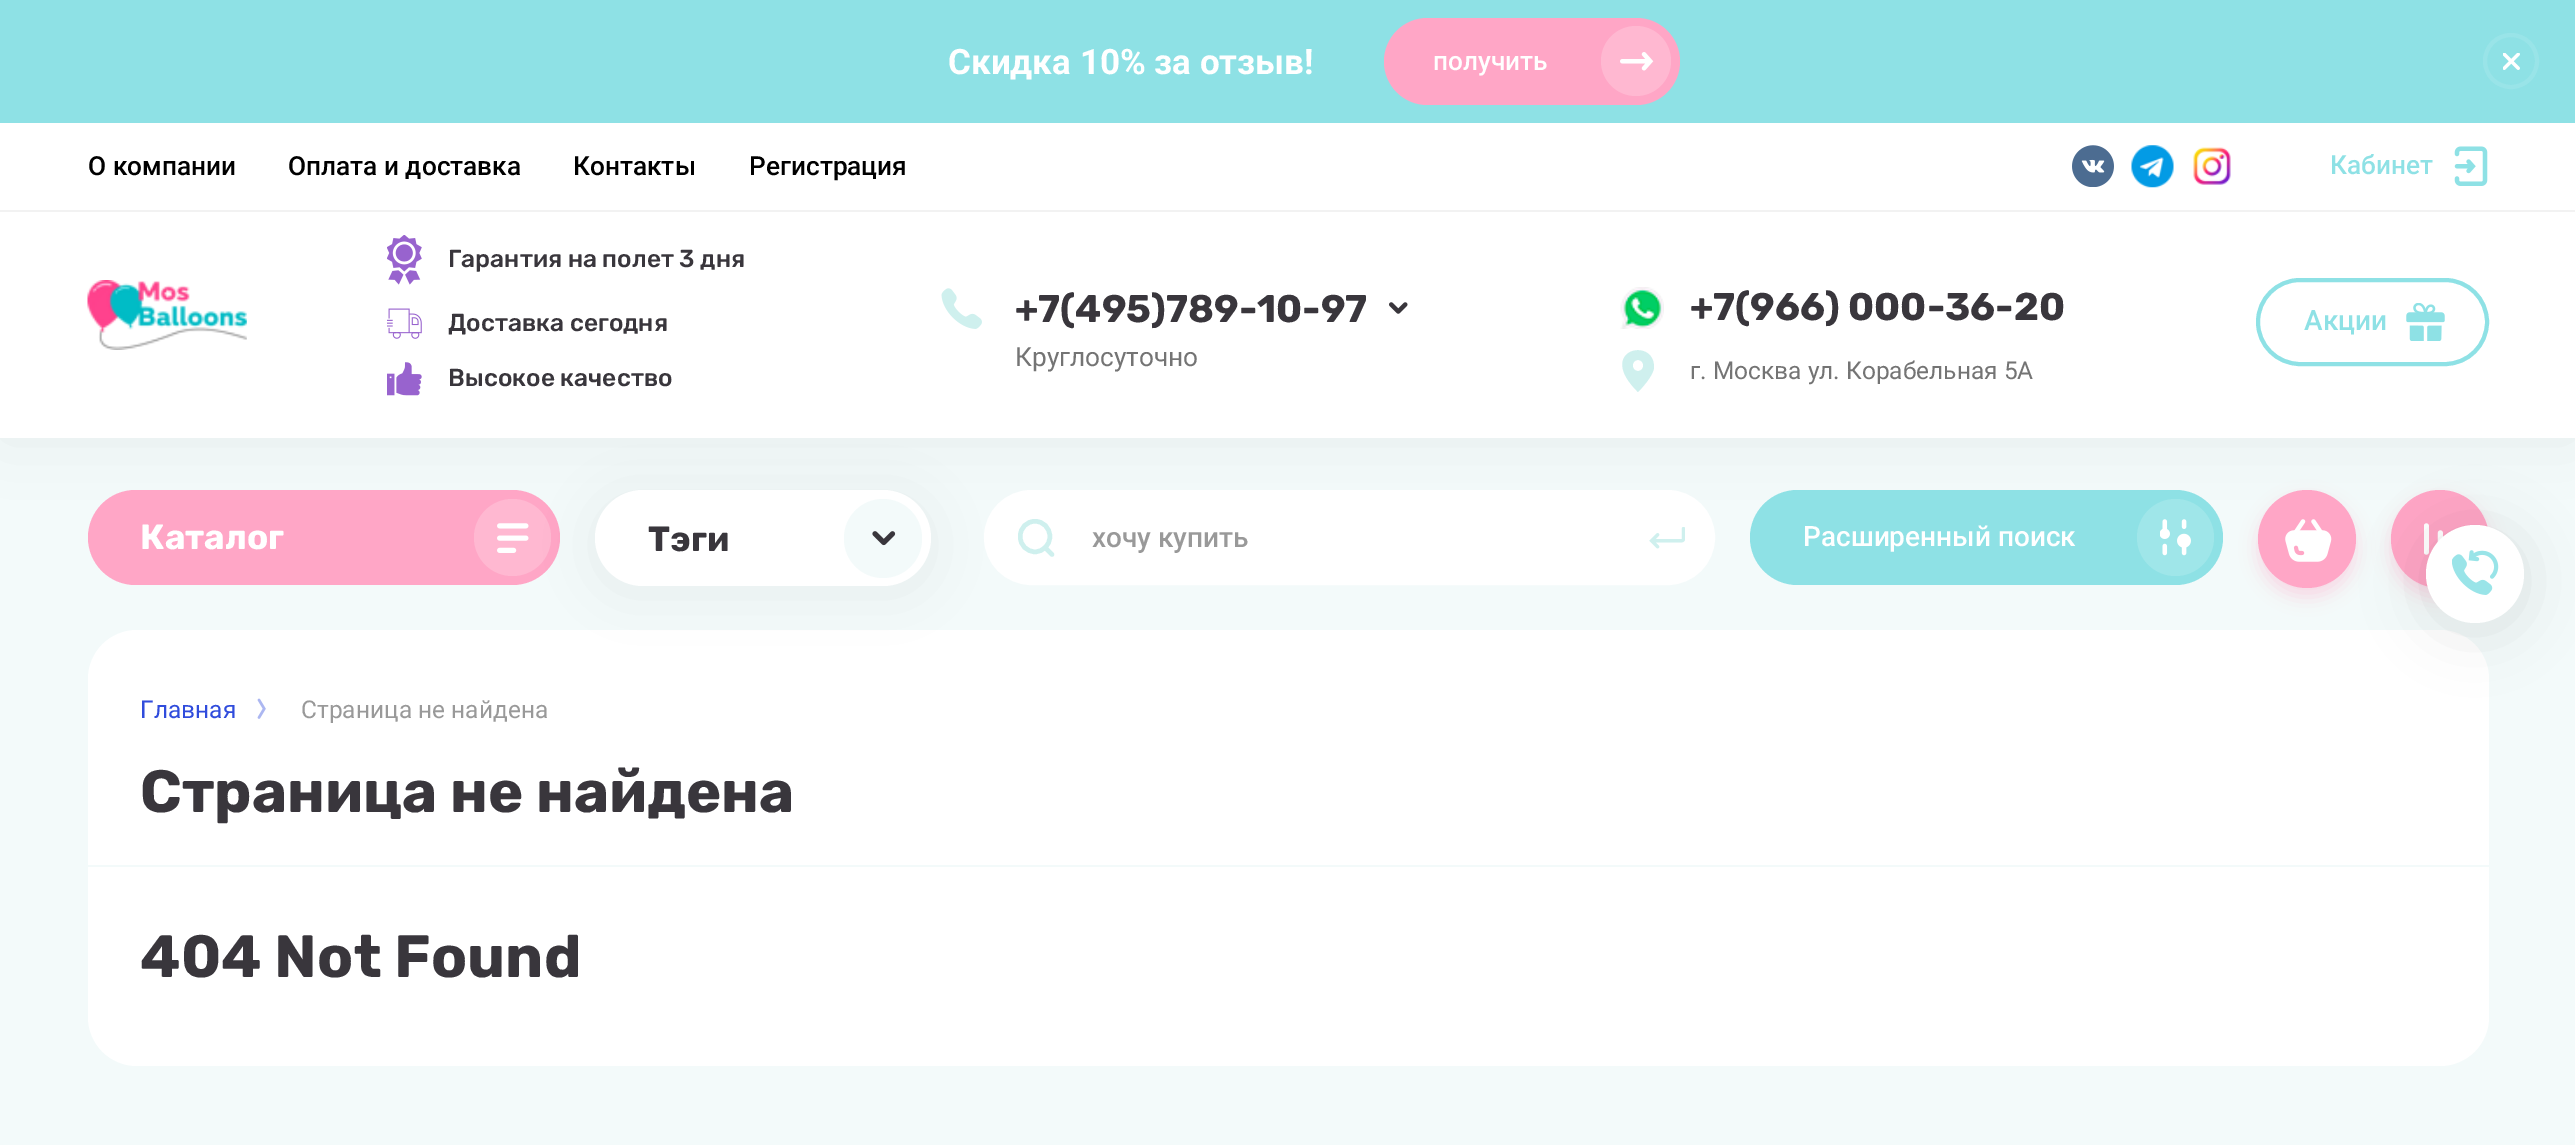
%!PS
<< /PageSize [2575 1145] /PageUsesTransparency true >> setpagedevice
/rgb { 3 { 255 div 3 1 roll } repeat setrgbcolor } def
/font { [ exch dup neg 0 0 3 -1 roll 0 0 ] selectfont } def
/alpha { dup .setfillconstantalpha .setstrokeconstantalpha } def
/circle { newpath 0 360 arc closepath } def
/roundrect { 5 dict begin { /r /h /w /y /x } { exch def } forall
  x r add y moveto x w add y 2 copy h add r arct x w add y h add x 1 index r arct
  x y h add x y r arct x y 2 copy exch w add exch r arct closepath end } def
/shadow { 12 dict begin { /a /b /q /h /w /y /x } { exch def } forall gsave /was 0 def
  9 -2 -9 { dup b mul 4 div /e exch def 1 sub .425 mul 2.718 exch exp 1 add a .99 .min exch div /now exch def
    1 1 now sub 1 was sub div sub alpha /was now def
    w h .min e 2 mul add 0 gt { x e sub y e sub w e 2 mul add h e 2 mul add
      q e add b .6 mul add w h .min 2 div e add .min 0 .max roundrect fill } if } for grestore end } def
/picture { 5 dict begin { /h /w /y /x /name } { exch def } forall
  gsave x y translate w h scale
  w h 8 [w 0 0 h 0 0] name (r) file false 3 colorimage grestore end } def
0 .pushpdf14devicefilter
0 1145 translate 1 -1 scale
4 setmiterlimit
243 250 250 rgb
0 0 2575 1145 rectfill
0 0 0 rgb
0 212 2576 227 0 35 0.05 shadow
142 225 229 rgb
0 0 2575 123 rectfill
255 166 198 rgb
1384 18 296 87 43.5 roundrect fill
255 184 209 rgb
1636 61 35 circle fill
(img/1.rgb) 1620 52 34 19 picture
153 228 232 rgb
4 setlinewidth
2511 61 26 circle stroke
(img/2.rgb) 2503 53 17 17 picture
242 242 242 rgb
0 210 2575 2 rectfill
255 255 255 rgb
0 123 2575 87 rectfill
(img/3.rgb) 2072 145 42 42 picture
(img/4.rgb) 2131 145 43 43 picture
(img/5.rgb) 2193 147 38 38 picture
(img/6.rgb) 2454 146 34 40 picture
0 212 2575 226 rectfill
(img/7.rgb) 87 280 160 70 picture
(img/8.rgb) 387 235 35 50 picture
(img/9.rgb) 387 308 35 31 picture
(img/10.rgb) 387 362 35 34 picture
(img/11.rgb) 941 288 41 41 picture
(img/12.rgb) 1389 302 19 12 picture
(img/13.rgb) 1620 287 44 42 picture
207 240 238 rgb
1654 367 moveto 1654 336 1595 350 1638 392 curveto 1638 392 1654 376 1654 367 curveto closepath 1638 371 moveto 1645 371 1645 360 1638 360 curveto 1631 360 1631 371 1638 371 curveto closepath eofill
142 225 229 rgb
2258 280 229 84 42 roundrect stroke
(img/14.rgb) 2406 303 39 38 picture
255 166 198 rgb
88 490 472 95 47.5 roundrect fill
255 184 209 rgb
512.5 537.5 38.5 circle fill
(img/15.rgb) 497 523 32 30 picture
255 255 255 rgb
986 492 727 91 45.5 roundrect gsave fill grestore
stroke
207 240 238 rgb
4.5 setlinewidth
1020.25 521.25 29.5 30.5 14.75 roundrect stroke
255 255 255 rgb
88 630 2401 436 49 roundrect fill
0 0 0 rgb
595 497 336 96 48 30 0.06 shadow
255 255 255 rgb
595 490 336 96 48 roundrect fill
243 250 250 rgb
844 499 78 79 39 roundrect fill
(img/16.rgb) 872 531 24 15 picture
207 240 238 rgb
1 setlinecap
1045 547.5 moveto 1052 554.5 lineto stroke
(img/17.rgb) 1649 527 36 22 picture
142 225 229 rgb
1750 490 473 95 47.5 roundrect fill
159 230 233 rgb
2175.5 537.5 38.5 circle fill
(img/18.rgb) 2160 519 31 37 picture
255 166 198 rgb
2258 499 98 98 49 9 0.4 shadow
2307 539 49 circle fill
(img/19.rgb) 2285 519 47 43 picture
2391 499 98 98 49 9 0.4 shadow
2440 539 49 circle fill
(img/20.rgb) 2424 523 19 32 picture
243 250 250 rgb
88 865 2401 2 rectfill
(img/21.rgb) 257 698 9 21 picture
0 0 0 rgb
2426 532 98 98 49 30 0.1 shadow
255 255 255 rgb
2475 574 49 circle fill
(img/22.rgb) 2452 550 47 45 picture
/Roboto-Bold 35 font
948 74 moveto (Скидка 10% за отзыв!) show
/Roboto-Medium 26.25 font
1433 70 moveto (получить) show
0 0 0 rgb
[
  [(О компании) 88 175]
  [(Оплата и доставка) 288 175]
  [(Контакты) 573 175]
  [(Регистрация) 749 175]
] { aload pop moveto show } forall
142 225 229 rgb
2330 174 moveto (Кабинет) show
/Rubik-Medium 24.5 font
57 54 60 rgb
[
  [(Гарантия на полет 3 дня) 448 267]
  [(Доставка сегодня) 448 331]
  [(Высокое качество) 448 386]
] { aload pop moveto show } forall
/Rubik-Bold 38.5 font
1015 322 moveto (+7\(495\)789-10-97) show
/Roboto-Regular 26.25 font
116 116 116 rgb
1015 366 moveto (Круглосуточно) show
/Rubik-Bold 38.5 font
57 54 60 rgb
1690 320 moveto (+7\(966\) 000-36-20) show
/Roboto-Regular 24.5 font
116 116 116 rgb
1690 379 moveto (г. Москва ул. Корабельная 5А) show
/Roboto-Medium 28 font
142 225 229 rgb
2304 330 moveto (Акции) show
/Rubik-Bold 35 font
255 255 255 rgb
140 549 moveto (Каталог) show
57 54 60 rgb
648 551 moveto (Тэги) show
/Roboto-Medium 28 font
153 153 153 rgb
1092 547 moveto (хочу купить) show
255 255 255 rgb
1803 546 moveto (Расширенный поиск) show
/Roboto-Regular 24.5 font
48 76 220 rgb
140 718 moveto (Главная) show
153 153 153 rgb
301 718 moveto (Страница не найдена) show
/Rubik-Bold 59.5 font
57 54 60 rgb
140 812 moveto (Страница не найдена) show
140 977 moveto (404 Not Found) show
.poppdf14devicefilter showpage
